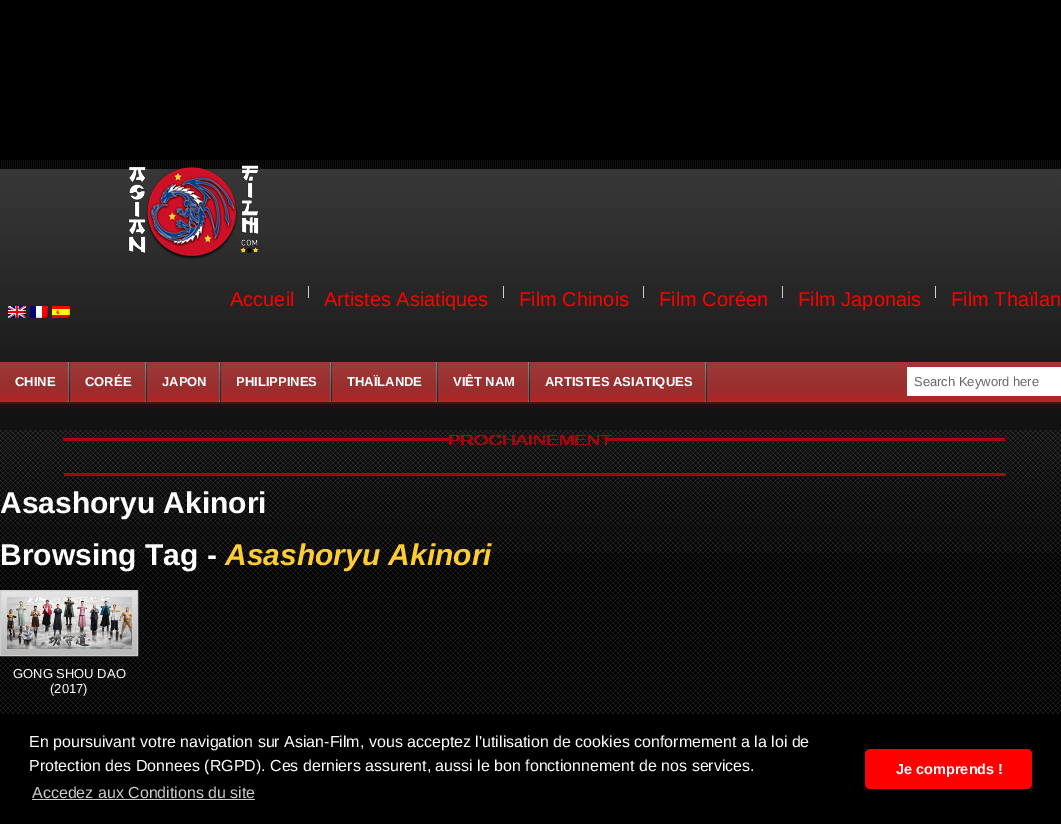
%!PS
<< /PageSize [1061 824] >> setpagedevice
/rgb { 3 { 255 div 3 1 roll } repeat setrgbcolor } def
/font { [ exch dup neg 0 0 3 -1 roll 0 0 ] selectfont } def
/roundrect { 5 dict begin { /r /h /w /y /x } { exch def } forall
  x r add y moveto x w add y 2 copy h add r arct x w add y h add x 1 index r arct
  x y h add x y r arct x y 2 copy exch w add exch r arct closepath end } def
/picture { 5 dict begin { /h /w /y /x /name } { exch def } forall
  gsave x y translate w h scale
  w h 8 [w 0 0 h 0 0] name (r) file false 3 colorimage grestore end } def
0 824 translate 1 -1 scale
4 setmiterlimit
0 0 0 rgb
0 0 1061 824 rectfill
(img/1.rgb) 0 160 1061 393 picture
(img/2.rgb) 128 165 131 94 picture
(img/3.rgb) 8 306 18 12 picture
(img/4.rgb) 30 306 18 12 picture
(img/5.rgb) 52 306 18 12 picture
(img/6.rgb) 308 286 1 12 picture
(img/6.rgb) 503 286 1 12 picture
(img/6.rgb) 643 286 1 12 picture
(img/6.rgb) 782 286 1 12 picture
(img/6.rgb) 935 286 1 12 picture
(img/7.rgb) 0 362 1061 43 picture
(img/8.rgb) 68 362 2 40 picture
(img/8.rgb) 145 362 2 40 picture
(img/8.rgb) 219 362 2 40 picture
(img/8.rgb) 330 362 2 40 picture
(img/8.rgb) 436 362 2 40 picture
(img/8.rgb) 528 362 2 40 picture
(img/8.rgb) 705 362 2 40 picture
255 255 255 rgb
907 367 154 29 rectfill
(img/9.rgb) 0 430 1061 284 picture
(img/10.rgb) 63 435 942 10 picture
167 5 13 rgb
64 473 942 3 rectfill
(img/11.rgb) 1 591 136 64 picture
207 207 207 rgb
0.5 590.5 137 65 rectstroke
(img/12.rgb) 7 597 125 52 picture
204 204 204 rgb
32 799 223 1 rectfill
255 0 0 rgb
865 749 167 40 5 roundrect fill
/LiberationSans-Regular 20 font
[
  [(Accueil) 230 306]
  [(Artistes Asiatiques) 324 306]
  [(Film Chinois) 519 306]
  [(Film Coréen) 659 306]
  [(Film Japonais) 798 306]
  [(Film Thaïlan) 951 306]
] { aload pop moveto show } forall
/LiberationSans-Bold 13 font
255 255 255 rgb
[
  [(CHINE) 15 386]
  [(CORÉE) 85 386]
  [(JAPON) 162 386]
  [(PHILIPPINES) 236 386]
  [(THAÏLANDE) 347 386]
  [(VIÊT NAM) 453 386]
  [(ARTISTES ASIATIQUES) 545 386]
] { aload pop moveto show } forall
/LiberationSans-Regular 13 font
102 102 102 rgb
914 386 moveto (Search Keyword here) show
/LiberationSans-Bold 30 font
255 255 255 rgb
0 513 moveto (Asashoryu Akinori) show
0 565 moveto (Browsing Tag -) show
/LiberationSans-BoldItalic 30 font
255 204 51 rgb
225 565 moveto (Asashoryu Akinori) show
/LiberationSans-Regular 13 font
255 255 255 rgb
13 678 moveto (GONG SHOU DAO) show
50 693 moveto (\(2017\)) show
/LiberationSans-Regular 16 font
29 747 moveto (En poursuivant votre navigation sur Asian-Film, vous acceptez l'utilisation de cookies conformement a la loi de) show
29 771 moveto (Protection des Donnees \(RGPD\). Ces derniers assurent, aussi le bon fonctionnement de nos services.) show
204 204 204 rgb
32 798 moveto (Accedez aux Conditions du site) show
/LiberationSans-Bold 14.5 font
255 255 255 rgb
896 774 moveto (Je comprends !) show
showpage
